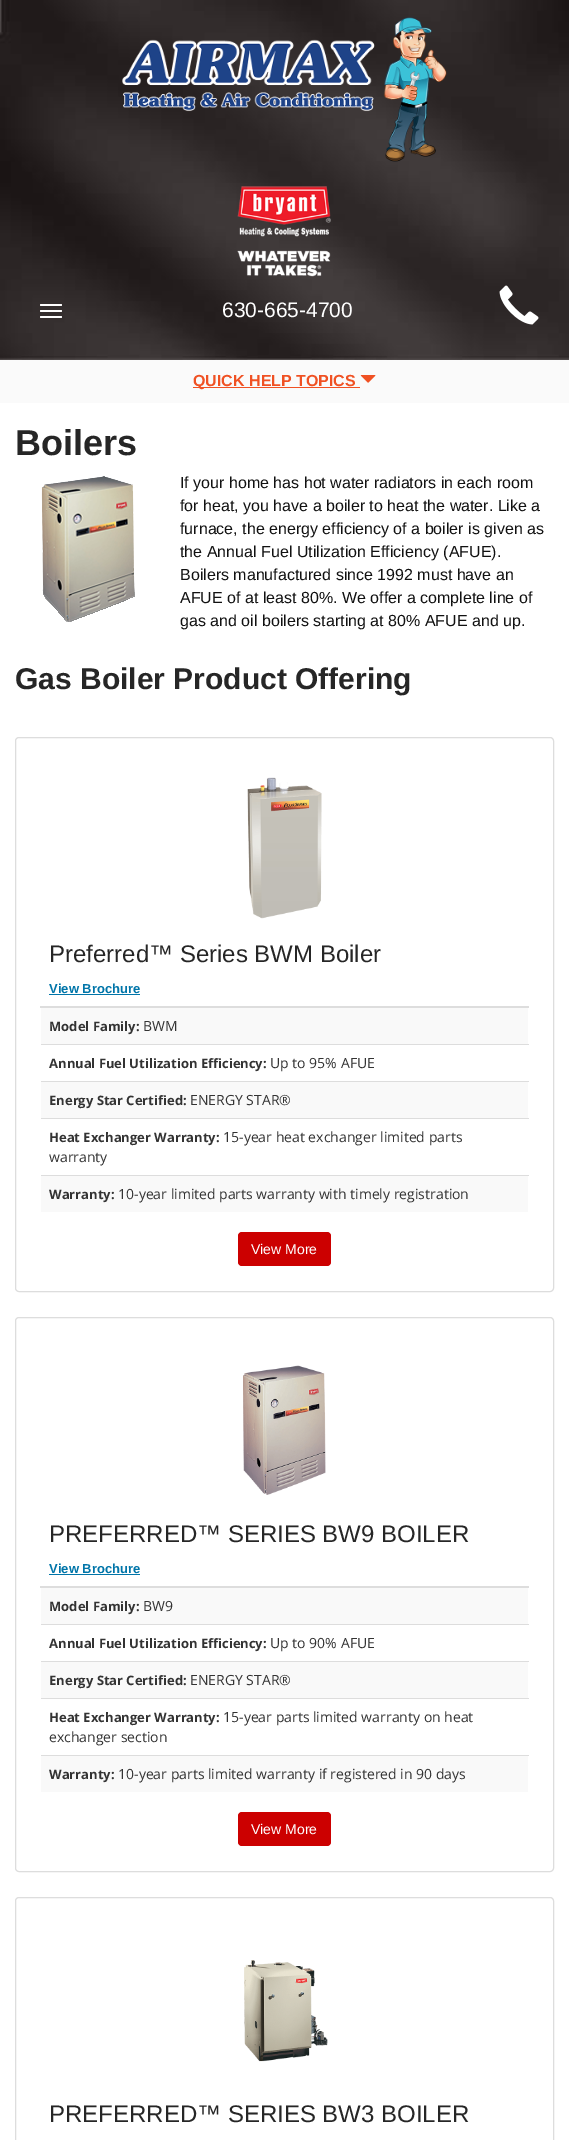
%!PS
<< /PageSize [569 2140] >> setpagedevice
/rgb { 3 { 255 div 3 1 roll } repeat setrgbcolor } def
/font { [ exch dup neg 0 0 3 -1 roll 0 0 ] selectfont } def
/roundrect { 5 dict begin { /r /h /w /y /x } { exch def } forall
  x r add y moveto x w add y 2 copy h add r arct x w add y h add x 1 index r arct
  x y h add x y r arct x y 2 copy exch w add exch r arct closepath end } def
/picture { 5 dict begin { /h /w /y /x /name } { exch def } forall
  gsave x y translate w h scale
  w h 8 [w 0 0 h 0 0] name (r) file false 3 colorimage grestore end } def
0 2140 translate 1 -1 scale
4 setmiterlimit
255 255 255 rgb
0 0 569 2140 rectfill
(img/1.rgb) 0 0 569 360 picture
(img/2.rgb) 122 17 325 145 picture
(img/3.rgb) 237 186 94 91 picture
40 304 22 2 1 roundrect fill
40 310 22 2 1 roundrect fill
40 316 22 2 1 roundrect fill
(img/4.rgb) 499 285 40 40 picture
250 250 250 rgb
0 360 569 43 rectfill
240 81 35 rgb
193 387 167 1 rectfill
(img/5.rgb) 360 375 16 8 picture
(img/6.rgb) 41 476 94 146 picture
221 221 221 rgb
15.5 737.5 538 554 3.5 roundrect stroke
(img/7.rgb) 247 777 75 142 picture
[
  [40 1006 489 2 221 221 221]
  [49 994 91 1 0 117 169]
  [41 1008 487 36 249 249 249]
  [41 1044 488 1 221 221 221]
  [41 1082 487 36 249 249 249]
  [41 1081 488 1 221 221 221]
  [41 1118 488 1 221 221 221]
  [41 1176 487 36 249 249 249]
  [41 1175 488 1 221 221 221]
] { aload pop rgb rectfill } forall
204 0 0 rgb
238 1232 93 34 4 roundrect fill
221 221 221 rgb
15.5 1317.5 538 554 3.5 roundrect stroke
(img/8.rgb) 243 1365 83 130 picture
[
  [40 1586 489 2 221 221 221]
  [49 1574 91 1 0 117 169]
  [41 1588 487 36 249 249 249]
  [41 1624 488 1 221 221 221]
  [41 1662 487 36 249 249 249]
  [41 1661 488 1 221 221 221]
  [41 1698 488 1 221 221 221]
  [41 1756 487 36 249 249 249]
  [41 1755 488 1 221 221 221]
] { aload pop rgb rectfill } forall
204 0 0 rgb
238 1812 93 34 4 roundrect fill
221 221 221 rgb
15.5 1897.5 538 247 3.5 roundrect stroke
(img/9.rgb) 244 1960 84 102 picture
/LiberationSans-Regular 21 font
255 255 255 rgb
222 317 moveto (630-665-4700) show
/LiberationSans-Bold 16 font
240 81 35 rgb
193 386 moveto (QUICK HELP TOPICS) show
/LiberationSans-Bold 36 font
38 38 38 rgb
15 455 moveto (Boilers) show
/LiberationSans-Regular 16 font
17 17 17 rgb
[
  [(If your home has hot water radiators in each room) 180 488]
  [(for heat, you have a boiler to heat the water. Like a) 180 511]
  [(furnace, the energy efficiency of a boiler is given as) 180 534]
  [(the Annual Fuel Utilization Efficiency \(AFUE\).) 180 557]
  [(Boilers manufactured since 1992 must have an) 180 580]
  [(AFUE of at least 80%. We offer a complete line of) 180 603]
  [(gas and oil boilers starting at 80% AFUE and up.) 180 626]
] { aload pop moveto show } forall
/LiberationSans-Bold 30 font
38 38 38 rgb
15 689 moveto (Gas Boiler Product Offering) show
/LiberationSans-Regular 24 font
49 962 moveto (Preferred™ Series BWM Boiler) show
/LiberationSans-Bold 13 font
0 117 169 rgb
49 993 moveto (View Brochure) show
/OpenSans-Bold 13 font
51 51 51 rgb
49 1031 moveto (Model Family:) show
/OpenSans-Regular 14 font
143 1031 moveto (BWM) show
/OpenSans-Bold 13 font
49 1068 moveto (Annual Fuel Utilization Efficiency:) show
/OpenSans-Regular 14 font
270 1068 moveto (Up to 95% AFUE) show
/OpenSans-Bold 13 font
49 1105 moveto (Energy Star Certified:) show
/OpenSans-Regular 14 font
190 1105 moveto (ENERGY STAR®) show
/OpenSans-Bold 13 font
49 1142 moveto (Heat Exchanger Warranty:) show
/OpenSans-Regular 14 font
223 1142 moveto (15-year heat exchanger limited parts) show
49 1162 moveto (warranty) show
/OpenSans-Bold 13 font
49 1199 moveto (Warranty:) show
/OpenSans-Regular 14 font
118 1199 moveto (10-year limited parts warranty with timely registration) show
/LiberationSans-Regular 14 font
255 255 255 rgb
251 1254 moveto (View More) show
/LiberationSans-Regular 24 font
38 38 38 rgb
49 1542 moveto (PREFERRED™ SERIES BW9 BOILER) show
/LiberationSans-Bold 13 font
0 117 169 rgb
49 1573 moveto (View Brochure) show
/OpenSans-Bold 13 font
51 51 51 rgb
49 1611 moveto (Model Family:) show
/OpenSans-Regular 14 font
143 1611 moveto (BW9) show
/OpenSans-Bold 13 font
49 1648 moveto (Annual Fuel Utilization Efficiency:) show
/OpenSans-Regular 14 font
270 1648 moveto (Up to 90% AFUE) show
/OpenSans-Bold 13 font
49 1685 moveto (Energy Star Certified:) show
/OpenSans-Regular 14 font
190 1685 moveto (ENERGY STAR®) show
/OpenSans-Bold 13 font
49 1722 moveto (Heat Exchanger Warranty:) show
/OpenSans-Regular 14 font
223 1722 moveto (15-year parts limited warranty on heat) show
49 1742 moveto (exchanger section) show
/OpenSans-Bold 13 font
49 1779 moveto (Warranty:) show
/OpenSans-Regular 14 font
118 1779 moveto (10-year parts limited warranty if registered in 90 days) show
/LiberationSans-Regular 14 font
255 255 255 rgb
251 1834 moveto (View More) show
/LiberationSans-Regular 24 font
38 38 38 rgb
49 2122 moveto (PREFERRED™ SERIES BW3 BOILER) show
showpage
